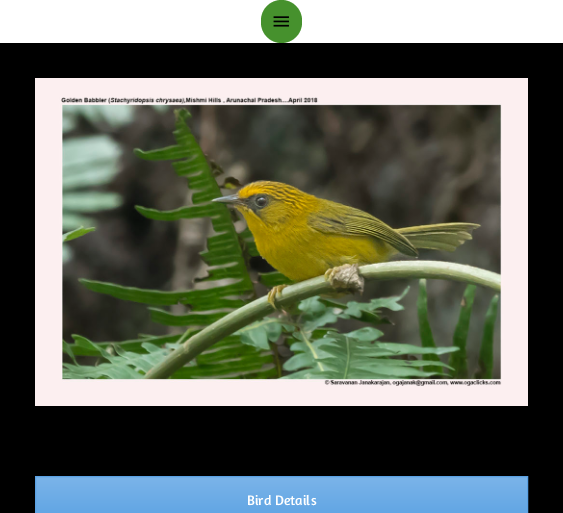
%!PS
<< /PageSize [563 513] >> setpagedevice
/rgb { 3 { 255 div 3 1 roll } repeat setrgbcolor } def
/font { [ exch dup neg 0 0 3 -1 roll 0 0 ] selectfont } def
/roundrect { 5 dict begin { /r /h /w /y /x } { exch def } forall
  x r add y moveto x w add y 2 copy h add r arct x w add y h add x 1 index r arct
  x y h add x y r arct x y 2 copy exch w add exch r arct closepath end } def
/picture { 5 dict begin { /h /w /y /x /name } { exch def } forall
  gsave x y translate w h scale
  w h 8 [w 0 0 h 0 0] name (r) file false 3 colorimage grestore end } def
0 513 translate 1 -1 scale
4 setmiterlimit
0 0 0 rgb
0 0 563 513 rectfill
255 255 255 rgb
0 0 563 43 rectfill
70 145 45 rgb
261 0 41 43 20.5 roundrect fill
(img/1.rgb) 273 16 16 11 picture
(img/2.rgb) 35 78 493 328 picture
gsave 36 477 moveto 527 477 lineto 527 513 lineto 36 513 lineto closepath clip newpath
<< /ShadingType 2 /ColorSpace /DeviceRGB /Coords [282 477 282 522] /Extend [true true] /Function << /FunctionType 2 /Domain [0 1] /C0 [0.482 0.706 0.914] /C1 [0.361 0.635 0.89] /N 1 >> >> shfill grestore
90 161 227 rgb
35.5 476.5 492 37 rectstroke
/Amaranth-Regular 14 font
255 255 255 rgb
247 505 moveto (Bird Details) show
showpage
